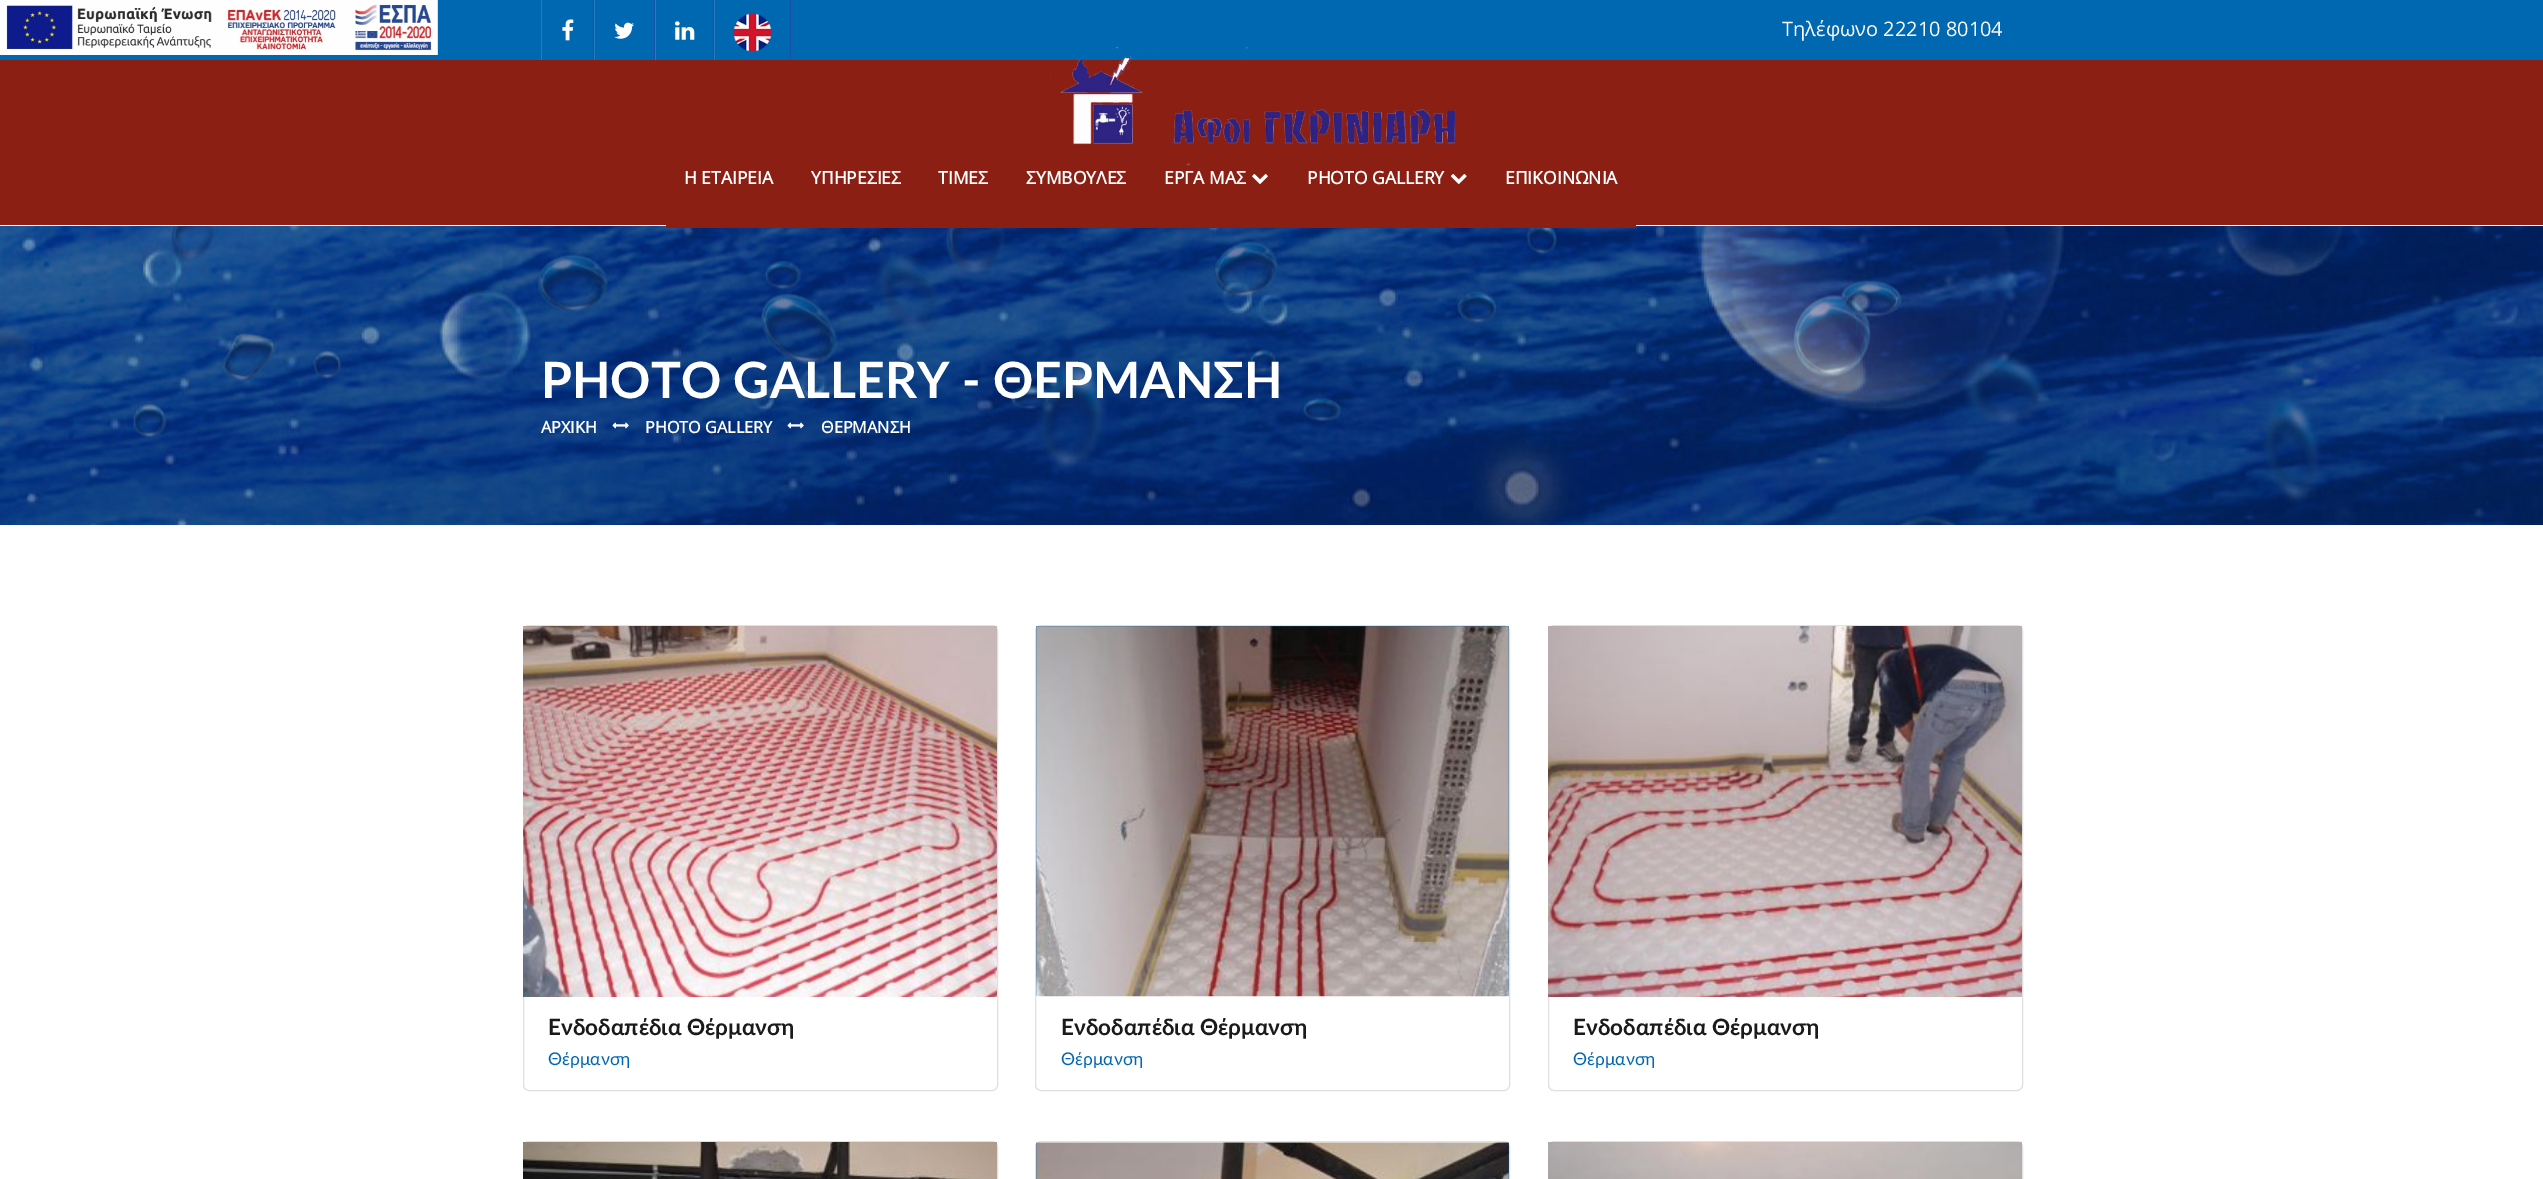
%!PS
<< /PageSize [2543 1179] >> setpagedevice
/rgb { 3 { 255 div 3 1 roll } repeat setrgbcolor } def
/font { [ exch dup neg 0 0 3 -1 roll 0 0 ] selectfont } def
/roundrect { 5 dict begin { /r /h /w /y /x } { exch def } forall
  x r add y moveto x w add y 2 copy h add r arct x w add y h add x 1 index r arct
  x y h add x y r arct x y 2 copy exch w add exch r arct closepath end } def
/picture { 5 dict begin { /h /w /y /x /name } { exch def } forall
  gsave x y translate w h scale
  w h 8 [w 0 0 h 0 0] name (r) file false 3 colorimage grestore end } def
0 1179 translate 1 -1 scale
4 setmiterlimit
255 255 255 rgb
0 0 2543 1179 rectfill
0 103 177 rgb
0 0 2543 60 rectfill
(img/1.rgb) 0 0 438 55 picture
27 79 168 rgb
593 0 1 60 rectfill
43 120 186 rgb
541 0 1 60 rectfill
(img/2.rgb) 562 19 12 22 picture
27 79 168 rgb
654 0 1 60 rectfill
43 120 186 rgb
594 0 1 60 rectfill
(img/3.rgb) 614 22 20 17 picture
27 79 168 rgb
713 0 1 60 rectfill
43 120 186 rgb
655 0 1 60 rectfill
(img/4.rgb) 675 21 20 19 picture
27 79 168 rgb
790 0 1 60 rectfill
43 120 186 rgb
714 0 1 60 rectfill
(img/5.rgb) 733 13 39 39 picture
139 31 19 rgb
0 60 2543 165 rectfill
(img/6.rgb) 1050 47 406 119 picture
(img/9.rgb) 0 226 2543 299 picture
666 225 970 3 rectfill
(img/7.rgb) 1252 174 16 10 picture
(img/8.rgb) 1450 174 17 10 picture
(img/10.rgb) 612 422 17 7 picture
(img/11.rgb) 787 422 17 7 picture
224 224 224 rgb
523.5 625.5 474 465 5.5 roundrect stroke
(img/12.rgb) 523 626 474 371 picture
1035.5 625.5 474 465 5.5 roundrect stroke
0 103 177 rgb
1036 626 473 370 rectfill
(img/13.rgb) 1036 626 473 371 picture
224 224 224 rgb
1548.5 625.5 474 465 5.5 roundrect stroke
(img/14.rgb) 1548 626 474 371 picture
523.5 1141.5 474 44 5.5 roundrect stroke
(img/15.rgb) 523 1142 474 37 picture
1035.5 1141.5 474 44 5.5 roundrect stroke
(img/16.rgb) 1036 1142 473 37 picture
1548.5 1141.5 474 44 5.5 roundrect stroke
(img/17.rgb) 1548 1142 474 37 picture
/OpenSans-Regular 20 font
255 255 255 rgb
1782 36 moveto (Τηλέφωνο 22210 80104) show
/OpenSans-Bold 17.5 font
[
  [(Η ΕΤΑΙΡΕΙΑ) 684 184]
  [(ΥΠΗΡΕΣΙΕΣ) 811 184]
  [(ΤΙΜΕΣ) 938 184]
  [(ΣΥΜΒΟΥΛΕΣ) 1026 184]
  [(ΕΡΓΑ ΜΑΣ) 1164 184]
  [(PHOTO GALLERY) 1307 184]
  [(ΕΠΙΚΟΙΝΩΝΙΑ) 1505 184]
] { aload pop moveto show } forall
/Lato-Bold 50 font
541 398 moveto (PHOTO GALLERY - ΘΕΡΜΑΝΣΗ) show
/OpenSans-Bold 16.25 font
[
  [(ΑΡΧΙΚΗ) 541 433]
  [(PHOTO GALLERY) 645 433]
  [(ΘΕΡΜΑΝΣΗ) 821 433]
] { aload pop moveto show } forall
/Lato-Bold 22.5 font
26 26 26 rgb
548 1035 moveto (Ενδοδαπέδια Θέρμανση) show
/Lato-Regular 17.5 font
0 103 177 rgb
548 1065 moveto (Θέρμανση) show
/Lato-Bold 22.5 font
26 26 26 rgb
1061 1035 moveto (Ενδοδαπέδια Θέρμανση) show
/Lato-Regular 17.5 font
0 103 177 rgb
1061 1065 moveto (Θέρμανση) show
/Lato-Bold 22.5 font
26 26 26 rgb
1573 1035 moveto (Ενδοδαπέδια Θέρμανση) show
/Lato-Regular 17.5 font
0 103 177 rgb
1573 1065 moveto (Θέρμανση) show
showpage
